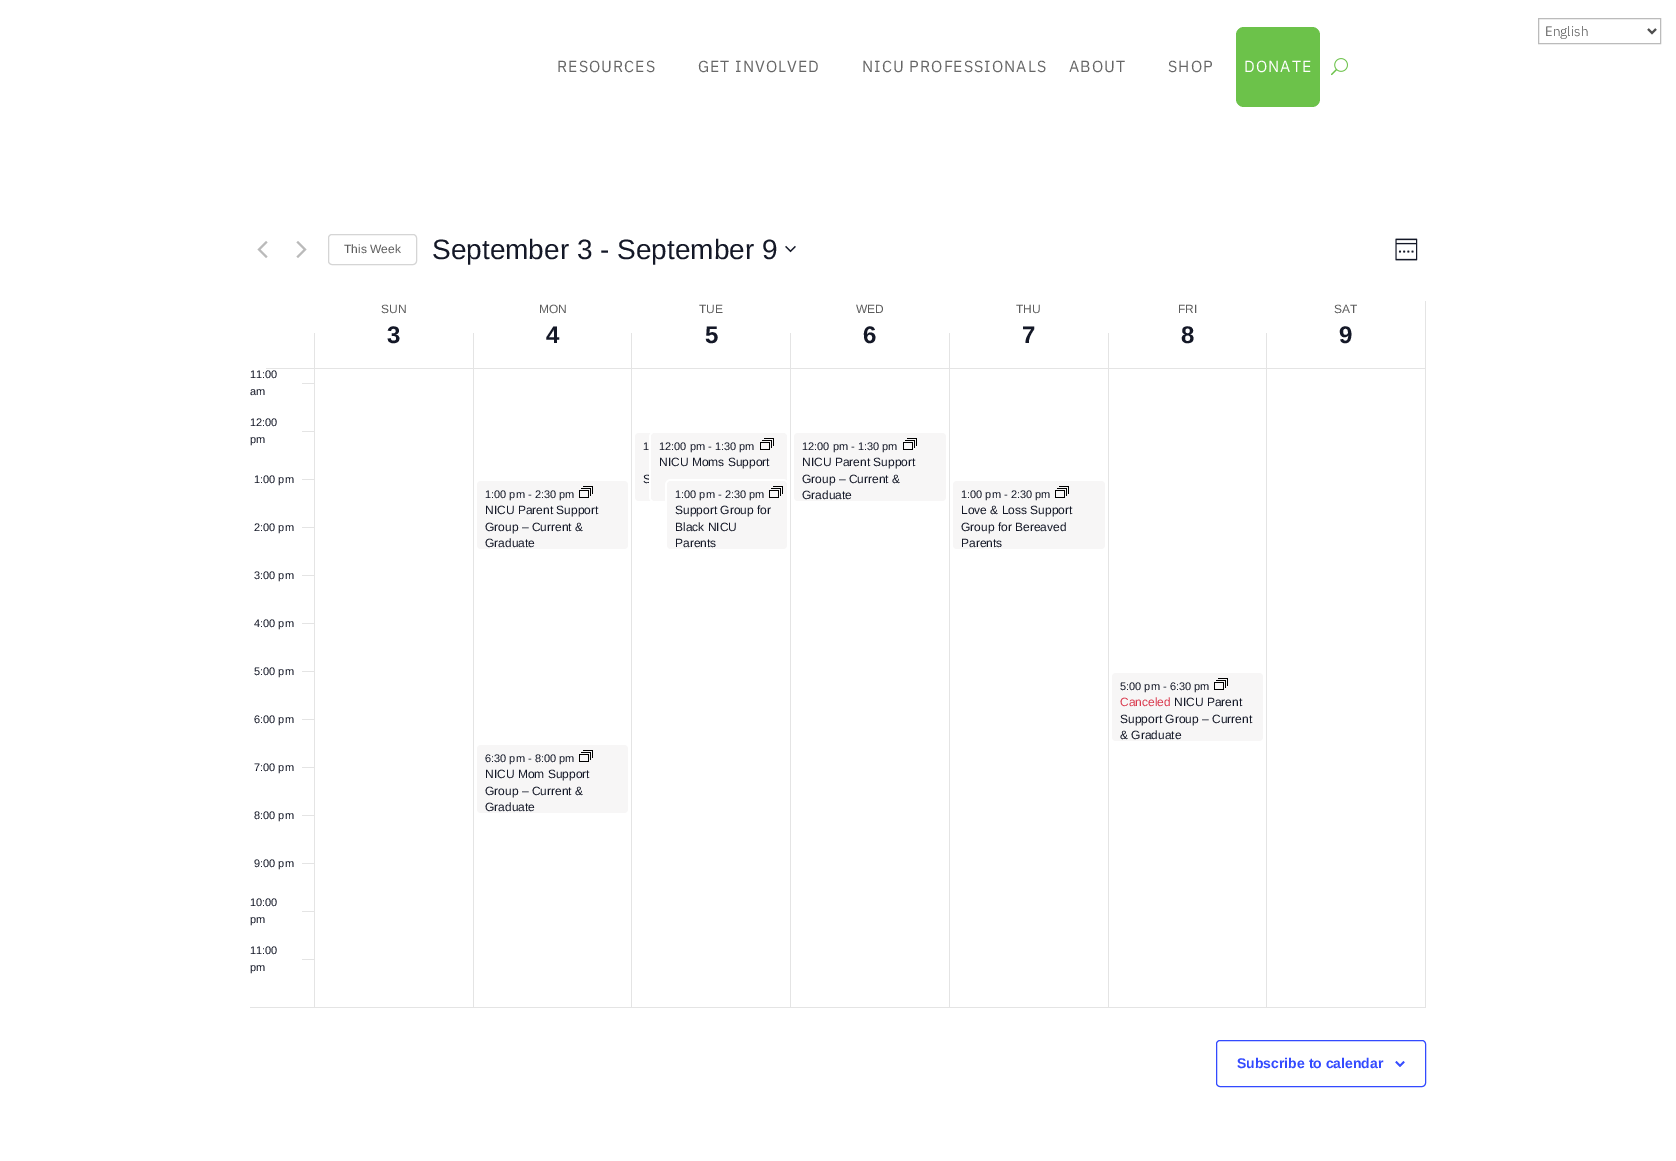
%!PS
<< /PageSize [1676 1161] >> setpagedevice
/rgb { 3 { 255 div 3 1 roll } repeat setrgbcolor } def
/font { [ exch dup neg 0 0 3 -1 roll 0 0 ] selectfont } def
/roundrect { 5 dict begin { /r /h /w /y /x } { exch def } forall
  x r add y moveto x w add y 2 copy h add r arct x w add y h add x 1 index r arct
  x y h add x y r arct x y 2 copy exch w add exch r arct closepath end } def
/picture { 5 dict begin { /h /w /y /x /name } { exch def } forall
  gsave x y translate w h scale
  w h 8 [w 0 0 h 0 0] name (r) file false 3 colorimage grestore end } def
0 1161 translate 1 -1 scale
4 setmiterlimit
255 255 255 rgb
0 0 1676 1161 rectfill
187 187 187 rgb
1538.5 18.5 122 25 rectstroke
78 78 78 rgb
2 setlinewidth
1648 29 moveto 1652 33 lineto 1656 29 lineto stroke
108 194 74 rgb
1236 27 84 80 8 roundrect fill
(img/1.rgb) 1331 58 17 18 picture
(img/2.rgb) 257 241 11 17 picture
(img/3.rgb) 296 241 11 17 picture
213 213 213 rgb
1 setlinewidth
328.5 234.5 88 30 3.5 roundrect stroke
(img/4.rgb) 785 245 11 8 picture
(img/5.rgb) 1395 238 23 23 picture
[
  [1425 301 1 707 228 228 228]
  [266 368 1159 1 228 228 228]
  [314 333 1 674 228 228 228]
  [473 333 1 674 228 228 228]
  [631 333 1 674 228 228 228]
  [790 333 1 674 228 228 228]
  [949 333 1 674 228 228 228]
  [1108 333 1 674 228 228 228]
  [1266 333 1 674 228 228 228]
  [250 1007 1175 1 228 228 228]
  [302 383 12 1 228 228 228]
  [302 431 12 1 228 228 228]
  [302 479 12 1 228 228 228]
  [302 527 12 1 228 228 228]
  [302 575 12 1 228 228 228]
  [302 623 12 1 228 228 228]
  [302 671 12 1 228 228 228]
  [302 719 12 1 228 228 228]
  [302 767 12 1 228 228 228]
  [302 815 12 1 228 228 228]
  [302 863 12 1 228 228 228]
  [302 911 12 1 228 228 228]
  [302 959 12 1 228 228 228]
] { aload pop rgb rectfill } forall
247 246 246 rgb
635 433 152 68 4 roundrect fill
794 433 152 68 4 roundrect fill
(img/6.rgb) 903 438 14 12 picture
477 481 151 68 4 roundrect fill
(img/6.rgb) 579 486 14 12 picture
477 745 151 68 4 roundrect fill
(img/6.rgb) 579 750 14 12 picture
953 481 152 68 4 roundrect fill
(img/6.rgb) 1055 486 14 12 picture
1112 673 151 68 4 roundrect fill
(img/6.rgb) 1214 678 14 12 picture
51 74 255 rgb
1216.5 1040.5 209 46 3.5 roundrect stroke
(img/7.rgb) 1395 1061 10 6 picture
/IBMPlexSans-Light 13.5 font
78 78 78 rgb
1545 36 moveto (English) show
/IBMPlexSans-Regular 16 font
102 102 102 rgb
557 72 moveto 1 0 (RESOURCES) ashow
698 72 moveto 1 0 (GET INVOLVED) ashow
862 72 moveto 1 0 (NICU PROFESSIONALS) ashow
1069 72 moveto 1 0 (ABOUT) ashow
1168 72 moveto 1 0 (SHOP) ashow
255 255 255 rgb
1244 72 moveto 1 0 (DONATE) ashow
/LiberationSans-Regular 12 font
93 93 93 rgb
344 253 moveto (This Week) show
/LiberationSans-Regular 28 font
20 24 39 rgb
432 259 moveto (September 3 - September 9) show
/LiberationSans-Regular 12 font
93 93 93 rgb
381 313 moveto (SUN) show
/LiberationSans-Bold 24 font
20 24 39 rgb
387 343 moveto (3) show
/LiberationSans-Regular 12 font
93 93 93 rgb
539 313 moveto (MON) show
/LiberationSans-Bold 24 font
20 24 39 rgb
546 343 moveto (4) show
/LiberationSans-Regular 12 font
93 93 93 rgb
699 313 moveto (TUE) show
/LiberationSans-Bold 24 font
20 24 39 rgb
705 343 moveto (5) show
/LiberationSans-Regular 12 font
93 93 93 rgb
856 313 moveto (WED) show
/LiberationSans-Bold 24 font
20 24 39 rgb
863 343 moveto (6) show
/LiberationSans-Regular 12 font
93 93 93 rgb
1016 313 moveto (THU) show
/LiberationSans-Bold 24 font
20 24 39 rgb
1022 343 moveto (7) show
/LiberationSans-Regular 12 font
93 93 93 rgb
1178 313 moveto (FRI) show
/LiberationSans-Bold 24 font
20 24 39 rgb
1181 343 moveto (8) show
/LiberationSans-Regular 12 font
93 93 93 rgb
1334 313 moveto (SAT) show
/LiberationSans-Bold 24 font
20 24 39 rgb
1339 343 moveto (9) show
/LiberationSans-Regular 11 font
[
  [(11:00) 250 378]
  [(am) 250 395]
  [(12:00) 250 426]
  [(pm) 250 443]
  [(1:00 pm) 254 483]
  [(2:00 pm) 254 531]
  [(3:00 pm) 254 579]
  [(4:00 pm) 254 627]
  [(5:00 pm) 254 675]
  [(6:00 pm) 254 723]
  [(7:00 pm) 254 771]
  [(8:00 pm) 254 819]
  [(9:00 pm) 254 867]
  [(10:00) 250 906]
  [(pm) 250 923]
  [(11:00) 250 954]
  [(pm) 250 971]
  [(1) 643 450]
] { aload pop moveto show } forall
/LiberationSans-Regular 12 font
643 483 moveto (S) show
255 255 255 rgb
2 setlinewidth
650 432 138 70 5 roundrect stroke
247 246 246 rgb
651 433 136 68 4 roundrect fill
/LiberationSans-Regular 11 font
20 24 39 rgb
659 450 moveto (12:00 pm - 1:30 pm) show
(img/6.rgb) 760 438 14 12 picture
/LiberationSans-Regular 12 font
659 466 moveto (NICU Moms Support) show
255 255 255 rgb
666 480 122 70 5 roundrect stroke
247 246 246 rgb
667 481 120 68 4 roundrect fill
/LiberationSans-Regular 11 font
20 24 39 rgb
675 498 moveto (1:00 pm - 2:30 pm) show
(img/6.rgb) 769 486 14 12 picture
/LiberationSans-Regular 12 font
[
  [(Support Group for) 675 514]
  [(Black NICU) 675 531]
  [(Parents) 675 547]
] { aload pop moveto show } forall
/LiberationSans-Regular 11 font
802 450 moveto (12:00 pm - 1:30 pm) show
/LiberationSans-Regular 12 font
[
  [(NICU Parent Support) 802 466]
  [(Group – Current &) 802 483]
  [(Graduate) 802 499]
] { aload pop moveto show } forall
/LiberationSans-Regular 11 font
485 498 moveto (1:00 pm - 2:30 pm) show
/LiberationSans-Regular 12 font
[
  [(NICU Parent Support) 485 514]
  [(Group – Current &) 485 531]
  [(Graduate) 485 547]
] { aload pop moveto show } forall
/LiberationSans-Regular 11 font
485 762 moveto (6:30 pm - 8:00 pm) show
/LiberationSans-Regular 12 font
[
  [(NICU Mom Support) 485 778]
  [(Group – Current &) 485 795]
  [(Graduate) 485 811]
] { aload pop moveto show } forall
/LiberationSans-Regular 11 font
961 498 moveto (1:00 pm - 2:30 pm) show
/LiberationSans-Regular 12 font
[
  [(Love & Loss Support) 961 514]
  [(Group for Bereaved) 961 531]
  [(Parents) 961 547]
] { aload pop moveto show } forall
/LiberationSans-Regular 11 font
1120 690 moveto (5:00 pm - 6:30 pm) show
/LiberationSans-Regular 12 font
218 57 77 rgb
1120 706 moveto (Canceled) show
20 24 39 rgb
[
  [(NICU Parent) 1174 706]
  [(Support Group – Current) 1120 723]
  [(& Graduate) 1120 739]
] { aload pop moveto show } forall
/LiberationSans-Bold 14 font
51 74 255 rgb
1237 1068 moveto (Subscribe to calendar) show
showpage
